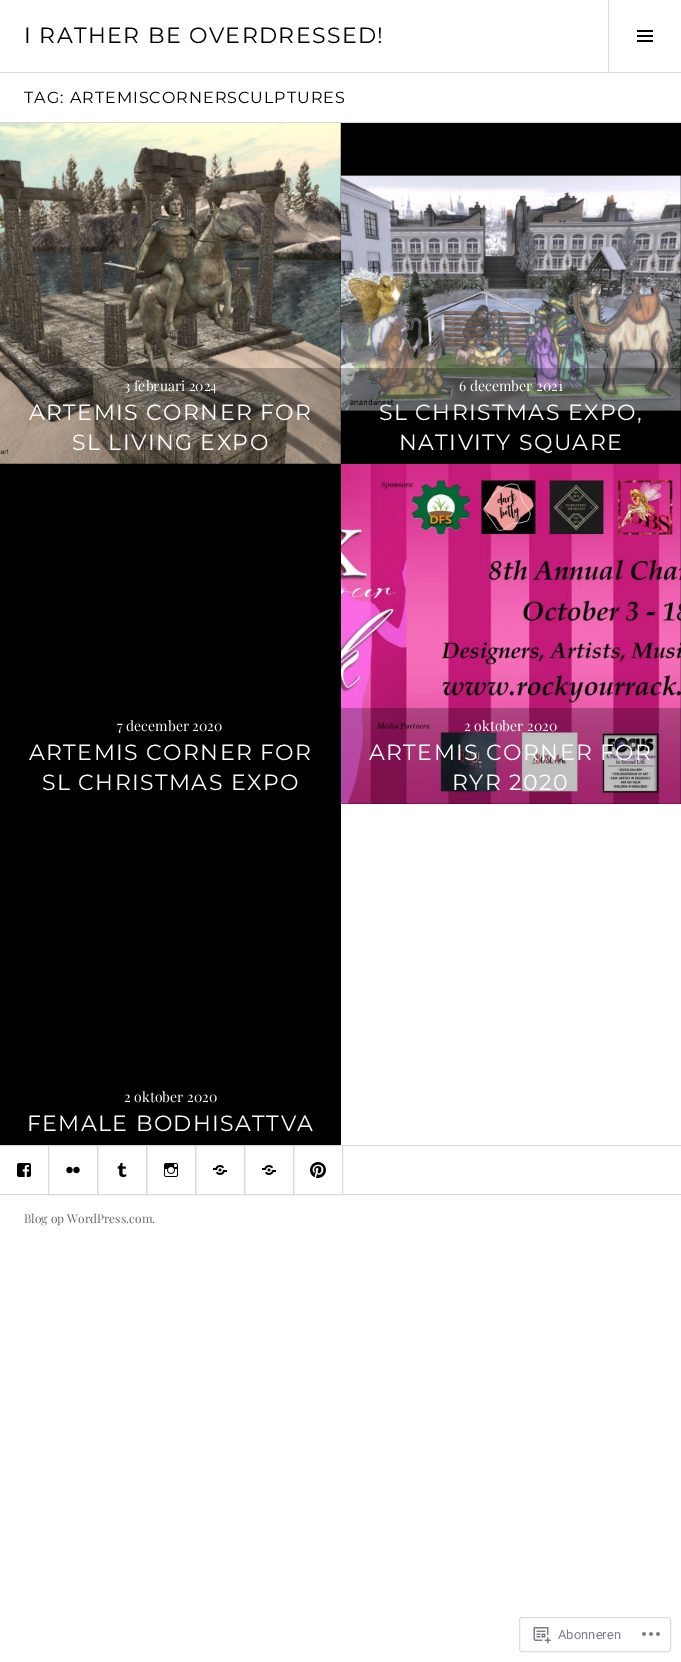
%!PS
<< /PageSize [681 1662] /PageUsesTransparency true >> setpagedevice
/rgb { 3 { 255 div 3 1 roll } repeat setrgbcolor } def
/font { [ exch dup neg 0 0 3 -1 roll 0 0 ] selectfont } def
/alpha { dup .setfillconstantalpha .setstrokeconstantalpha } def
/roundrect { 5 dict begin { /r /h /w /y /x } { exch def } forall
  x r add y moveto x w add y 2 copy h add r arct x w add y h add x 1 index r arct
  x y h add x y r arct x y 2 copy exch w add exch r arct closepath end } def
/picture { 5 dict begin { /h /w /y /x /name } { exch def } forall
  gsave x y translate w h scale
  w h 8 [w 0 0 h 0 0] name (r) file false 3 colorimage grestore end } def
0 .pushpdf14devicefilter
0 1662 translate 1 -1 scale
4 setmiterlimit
255 255 255 rgb
0 0 681 1662 rectfill
217 217 217 rgb
0 72 681 1 rectfill
608 0 1 72 rectfill
(img/1.rgb) 637 30 16 12 picture
0 122 681 1 rectfill
0 0 0 rgb
0 123 681 341 rectfill
(img/2.rgb) 0 123 341 341 picture
0.25 alpha
0 368 341 96 rectfill
1 alpha
(img/3.rgb) 341 175 340 236 picture
0.25 alpha
341 368 340 43 rectfill
1 alpha
0 464 681 340 rectfill
(img/4.rgb) 341 464 340 340 picture
0.25 alpha
[
  [341 708 340 96 0 0 0]
] { aload pop rgb rectfill } forall
1 alpha
[
  [0 804 341 341 0 0 0]
  [0 1145 681 1 217 217 217]
] { aload pop rgb rectfill } forall
(img/5.rgb) 17 1163 14 14 picture
gsave
0 1146 681 96 rectclip
48.5 1145.5 49 49 rectstroke
grestore
(img/6.rgb) 66 1166 14 8 picture
gsave
0 1146 681 96 rectclip
97.5 1145.5 49 49 rectstroke
grestore
(img/7.rgb) 117 1163 10 14 picture
gsave
0 1146 681 96 rectclip
146.5 1145.5 49 49 rectstroke
grestore
(img/8.rgb) 164 1163 14 14 picture
gsave
0 1146 681 96 rectclip
195.5 1145.5 49 49 rectstroke
grestore
(img/9.rgb) 213 1165 14 10 picture
gsave
0 1146 681 96 rectclip
244.5 1145.5 49 49 rectstroke
grestore
(img/9.rgb) 262 1165 14 10 picture
gsave
0 1146 681 96 rectclip
293.5 1145.5 49 49 rectstroke
grestore
(img/10.rgb) 310 1162 16 16 picture
0 1194 681 1 rectfill
221 221 223 rgb
519.5 1617.5 151 34 2.5 roundrect stroke
(img/11.rgb) 533 1627 18 17 picture
(img/12.rgb) 642 1632 18 4 picture
/Montserrat-Regular 22 font
0 0 0 rgb
24 43 moveto 1.4 0 (I RATHER BE OVERDRESSED!) ashow
/Montserrat-Regular 16 font
24 103 moveto 1 0 (TAG: ARTEMISCORNERSCULPTURES) ashow
/PlayfairDisplay-Regular 14 font
255 255 255 rgb
124 391 moveto (3 februari 2024) show
/Montserrat-Regular 22 font
29 420 moveto 1.4 0 (ARTEMIS CORNER FOR) ashow
72 450 moveto 1.4 0 (SL LIVING EXPO) ashow
/PlayfairDisplay-Regular 14 font
459 391 moveto (6 december 2021) show
/Montserrat-Regular 22 font
379 420 moveto 1.4 0 (SL CHRISTMAS EXPO,) ashow
399 450 moveto 1.4 0 (NATIVITY SQUARE) ashow
/PlayfairDisplay-Regular 14 font
117 731 moveto (7 december 2020) show
/Montserrat-Regular 22 font
29 760 moveto 1.4 0 (ARTEMIS CORNER FOR) ashow
42 790 moveto 1.4 0 (SL CHRISTMAS EXPO) ashow
/PlayfairDisplay-Regular 14 font
464 731 moveto (2 oktober 2020) show
/Montserrat-Regular 22 font
369 760 moveto 1.4 0 (ARTEMIS CORNER FOR) ashow
452 790 moveto 1.4 0 (RYR 2020) ashow
/PlayfairDisplay-Regular 14 font
124 1102 moveto (2 oktober 2020) show
/Montserrat-Regular 22 font
27 1131 moveto 1.4 0 (FEMALE BODHISATTVA) ashow
/PlayfairDisplay-Regular 12 font
102 102 102 rgb
24 1223 moveto (Blog op WordPress.com.) show
/Roboto-Regular 13 font
123 127 133 rgb
558 1639 moveto (Abonneren) show
.poppdf14devicefilter showpage
